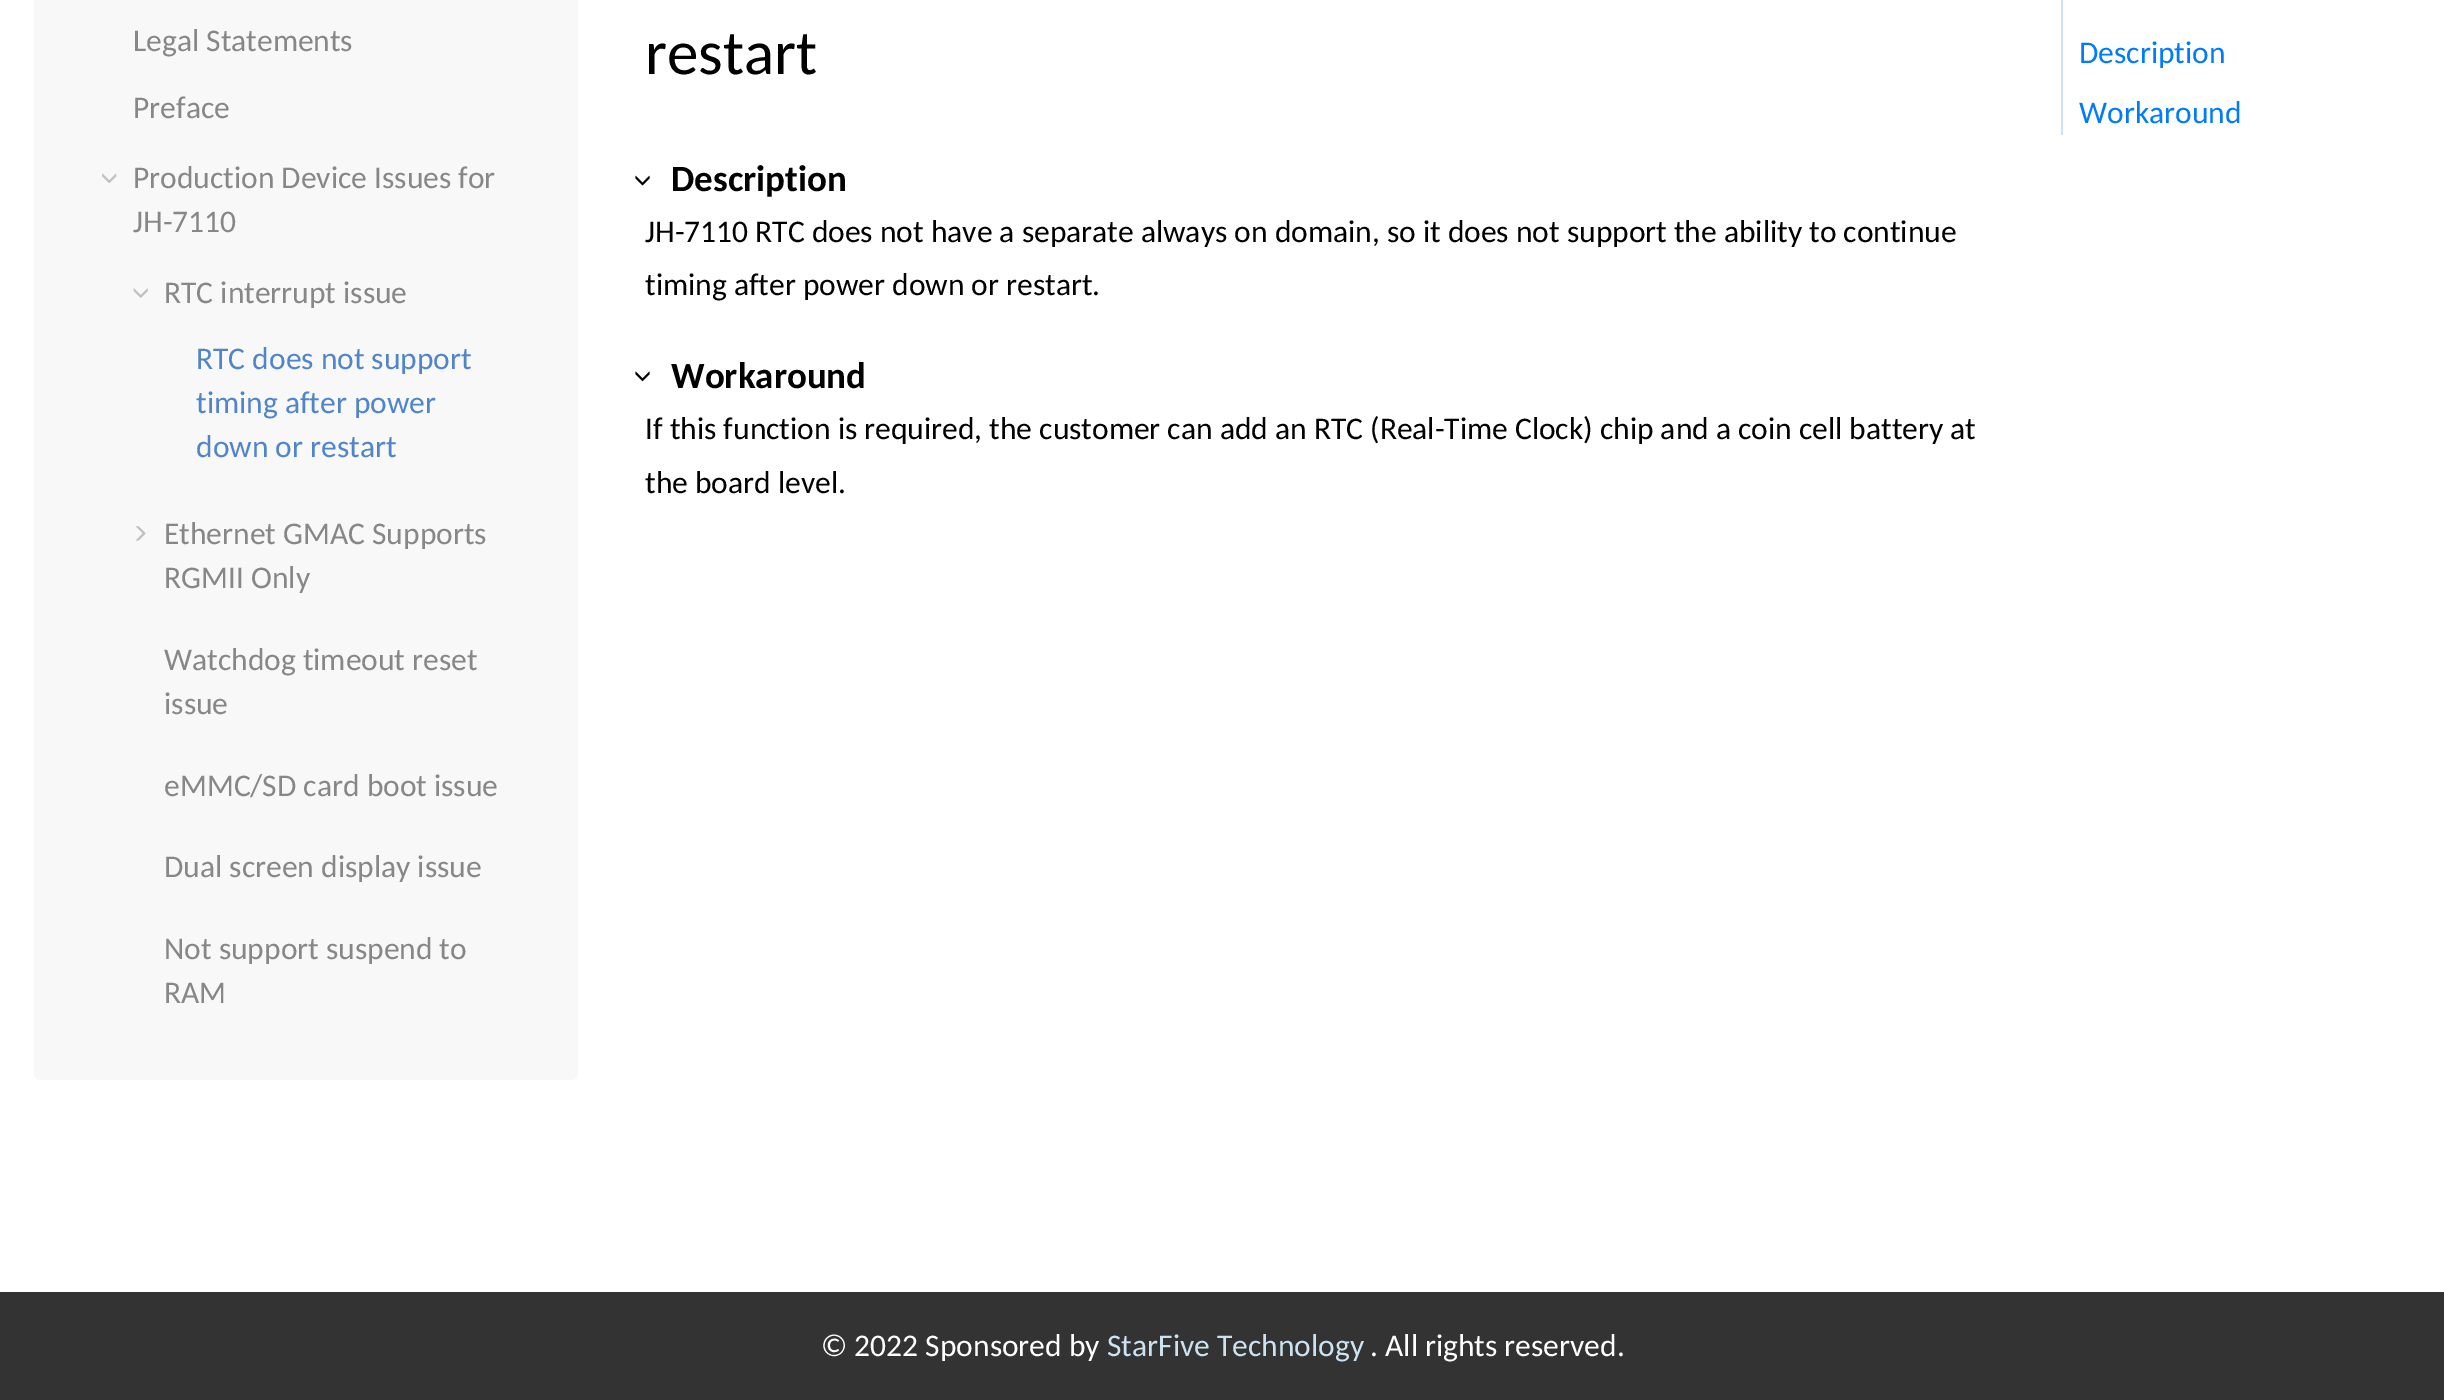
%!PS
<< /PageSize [2444 1400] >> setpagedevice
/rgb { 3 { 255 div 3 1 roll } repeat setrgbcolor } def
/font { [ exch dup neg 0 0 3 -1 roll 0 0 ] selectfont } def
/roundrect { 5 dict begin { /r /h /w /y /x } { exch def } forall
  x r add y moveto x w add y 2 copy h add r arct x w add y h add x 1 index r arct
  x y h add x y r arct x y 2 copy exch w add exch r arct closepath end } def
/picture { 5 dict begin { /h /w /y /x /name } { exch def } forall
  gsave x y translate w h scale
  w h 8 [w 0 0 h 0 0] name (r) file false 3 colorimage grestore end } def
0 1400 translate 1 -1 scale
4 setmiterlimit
255 255 255 rgb
0 0 2444 1400 rectfill
248 248 248 rgb
34 -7 544 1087 7 roundrect fill
(img/1.rgb) 102 173 15 11 picture
(img/2.rgb) 133 288 15 10 picture
(img/3.rgb) 136 526 10 15 picture
(img/4.rgb) 635 175 15 11 picture
(img/5.rgb) 635 371 15 11 picture
207 226 245 rgb
2061 0 2 135 rectfill
51 51 51 rgb
0 1292 2444 108 rectfill
/Carlito-Regular 31.5 font
135 135 135 rgb
[
  [(Legal Statements) 133 51]
  [(Preface) 133 118]
  [(Production Device Issues for) 133 188]
  [(JH-7110) 133 232]
  [(RTC interrupt issue) 164 303]
] { aload pop moveto show } forall
81 133 203 rgb
[
  [(RTC does not support) 196 369]
  [(timing after power) 196 413]
  [(down or restart) 196 457]
] { aload pop moveto show } forall
135 135 135 rgb
[
  [(Ethernet GMAC Supports) 164 544]
  [(RGMII Only) 164 588]
  [(Watchdog timeout reset) 164 670]
  [(issue) 164 714]
  [(eMMC/SD card boot issue) 164 796]
  [(Dual screen display issue) 164 877]
  [(Not support suspend to) 164 959]
  [(RAM) 164 1003]
] { aload pop moveto show } forall
/Carlito-Regular 63 font
0 0 0 rgb
645 74 moveto (restart) show
/Carlito-Bold 37 font
671 191 moveto (Description) show
/Carlito-Regular 31.5 font
645 242 moveto (JH-7110 RTC does not have a separate always on domain, so it does not support the ability to continue) show
645 295 moveto (timing after power down or restart.) show
/Carlito-Bold 37 font
671 388 moveto (Workaround) show
/Carlito-Regular 31.5 font
645 439 moveto (If this function is required, the customer can add an RTC \(Real-Time Clock\) chip and a coin cell battery at) show
645 493 moveto (the board level.) show
0 123 255 rgb
2079 63 moveto (Description) show
2079 123 moveto (Workaround) show
255 255 255 rgb
821 1356 moveto (© 2022 Sponsored by) show
204 226 241 rgb
1107 1356 moveto (StarFive Technology) show
255 255 255 rgb
1370 1356 moveto (. All rights reserved.) show
showpage
